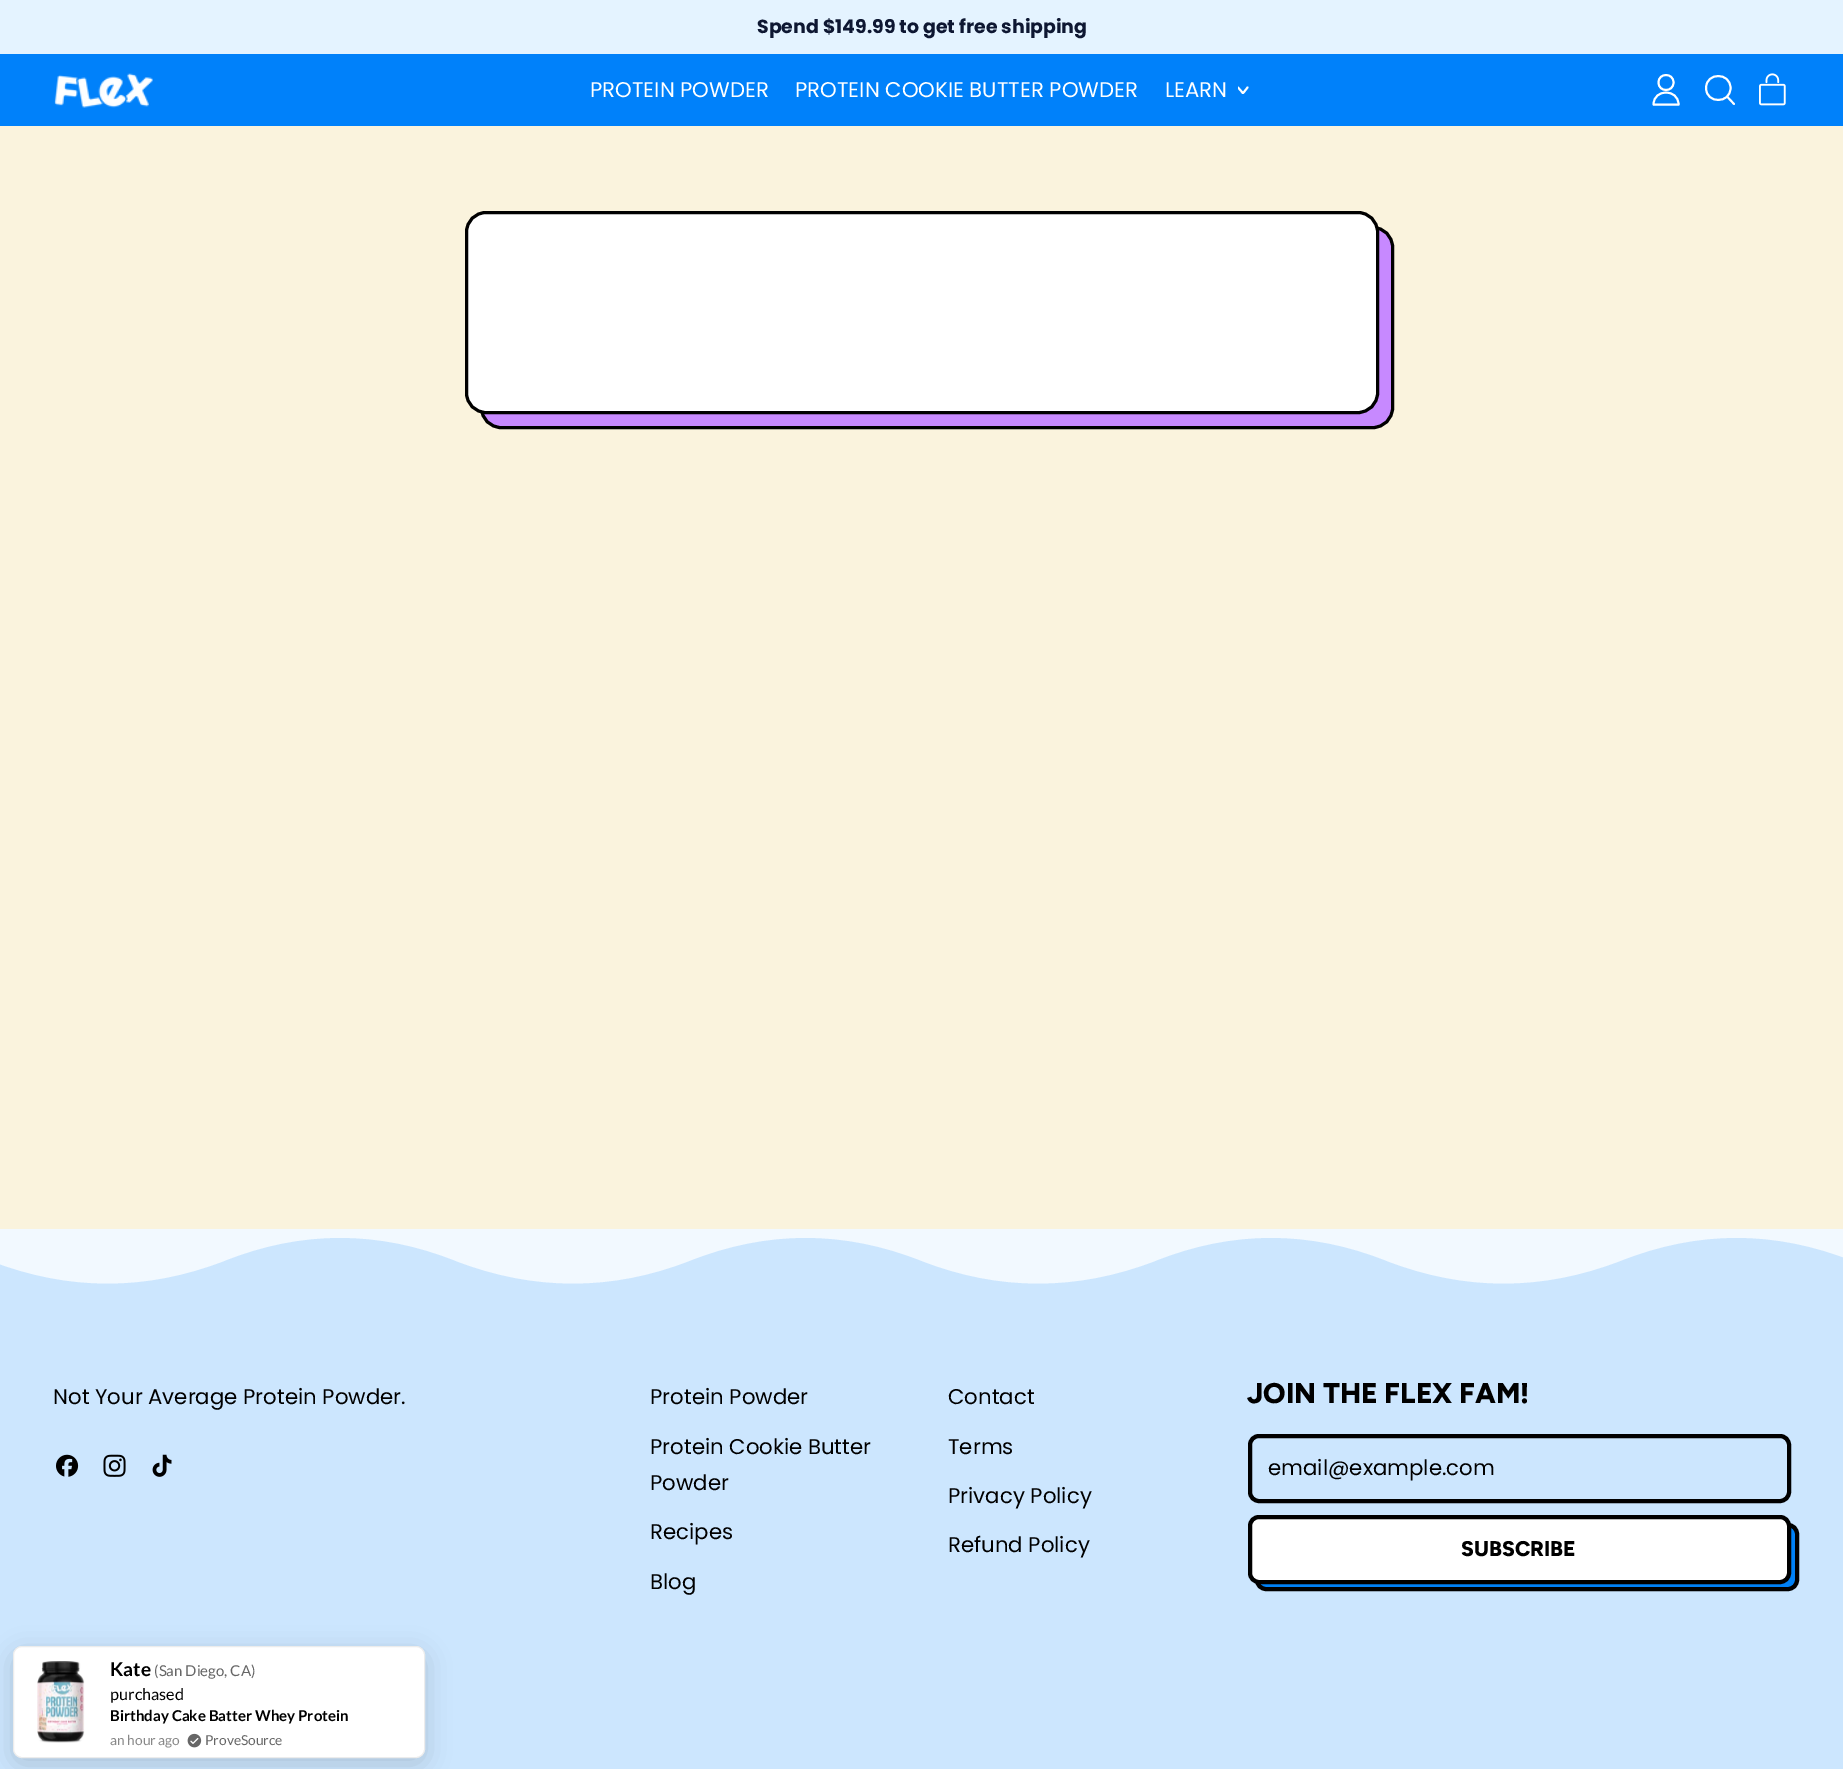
%!PS
<< /PageSize [1843 1769] /PageUsesTransparency true >> setpagedevice
/rgb { 3 { 255 div 3 1 roll } repeat setrgbcolor } def
/font { [ exch dup neg 0 0 3 -1 roll 0 0 ] selectfont } def
/alpha { dup .setfillconstantalpha .setstrokeconstantalpha } def
/roundrect { 5 dict begin { /r /h /w /y /x } { exch def } forall
  x r add y moveto x w add y 2 copy h add r arct x w add y h add x 1 index r arct
  x y h add x y r arct x y 2 copy exch w add exch r arct closepath end } def
/shadow { 12 dict begin { /a /b /q /h /w /y /x } { exch def } forall gsave /was 0 def
  9 -2 -9 { dup b mul 4 div /e exch def 1 sub .425 mul 2.718 exch exp 1 add a .99 .min exch div /now exch def
    1 1 now sub 1 was sub div sub alpha /was now def
    w h .min e 2 mul add 0 gt { x e sub y e sub w e 2 mul add h e 2 mul add
      q e add b .6 mul add w h .min 2 div e add .min 0 .max roundrect fill } if } for grestore end } def
/picture { 5 dict begin { /h /w /y /x /name } { exch def } forall
  gsave x y translate w h scale
  w h 8 [w 0 0 h 0 0] name (r) file false 3 colorimage grestore end } def
0 .pushpdf14devicefilter
0 1769 translate 1 -1 scale
4 setmiterlimit
250 243 221 rgb
0 0 1843 1769 rectfill
228 243 255 rgb
0 0 1843 54 rectfill
0 129 250 rgb
0 54 1843 72 rectfill
(img/1.rgb) 54 73 99 35 picture
gsave
1238 85 11 10 rectclip
255 255 255 rgb
1.9 setlinewidth
1 setlinecap
1 setlinejoin
1238 87.5 moveto 1242 92 lineto 1243 93.5 1242.5 93.5 1244 92 curveto 1247.5 87.5 lineto stroke
grestore
255 255 255 rgb
1.9 setlinewidth
1 setlinecap
1 setlinejoin
1658.5 82.5 moveto 1658.5 92.5 1673.5 92.5 1673.5 82.5 curveto 1673.5 72.5 1658.5 72.5 1658.5 82.5 curveto closepath 1653.5 104.5 moveto 1653.5 88.5 1678.5 88.5 1678.5 104.5 curveto closepath stroke
1706 88 moveto 1706 104 1730.5 104 1730.5 88 curveto 1730.5 72 1706 72 1706 88 curveto closepath 1734 104 moveto 1727 96.5 lineto stroke
(img/2.rgb) 1759 73 27 33 picture
199 137 255 rgb
481.5 227.5 911 200 19.5 roundrect gsave fill grestore
0 0 0 rgb
3 setlinewidth
0 setlinecap
0 setlinejoin
stroke
255 255 255 rgb
466.5 212.5 911 200 19.5 roundrect gsave fill grestore
0 0 0 rgb
stroke
204 230 254 rgb
0 1237 1843 532 rectfill
gsave
0 1229 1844 62 rectclip
242 249 255 rgb
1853 1261 moveto 1775 1230 1698 1230 1620 1261 curveto 1542 1291 1465 1291 1387 1261 curveto 1310 1230 1232 1230 1155 1261 curveto 1077 1291 999 1291 922 1261 curveto 844 1230 767 1230 689 1261 curveto 612 1291 534 1291 456 1261 curveto 379 1230 301 1230 224 1261 curveto 146 1291 69 1291 -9 1261 curveto -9 1225 lineto 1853 1225 lineto closepath fill
grestore
(img/3.rgb) 56 1454 23 23 picture
(img/4.rgb) 103 1454 23 23 picture
(img/5.rgb) 152 1454 20 23 picture
0 0 0 rgb
4 setlinewidth
1250 1436 539 65 9 roundrect stroke
0 129 246 rgb
1257 1525 540 64 9 roundrect gsave fill grestore
0 0 0 rgb
stroke
255 255 255 rgb
1250 1517 539 65 9 roundrect gsave fill grestore
0 0 0 rgb
stroke
13 1653 412 111 9 12.5 0.15 shadow
255 255 255 rgb
13.5 1646.5 411 111 8.5 roundrect gsave fill grestore
236 236 236 rgb
1 setlinewidth
stroke
(img/6.rgb) 37 1661 48 82 picture
(img/7.rgb) 187 1733 15 15 picture
/Poppins-Bold 18.9 font
14 23 50 rgb
757 33 moveto (Spend $149.99 to get free shipping) show
/Poppins-Regular 21.25 font
255 255 255 rgb
[
  [(PROTEIN POWDER) 590 97]
  [(PROTEIN COOKIE BUTTER POWDER) 795 97]
  [(LEARN) 1165 97]
] { aload pop moveto show } forall
0 0 0 rgb
[
  [(Not Your Average Protein Powder.) 53 1404]
  [(Protein Powder) 650 1404]
  [(Protein Cookie Butter) 650 1454]
  [(Powder) 650 1490]
  [(Recipes) 650 1539]
  [(Blog) 650 1589]
  [(Contact) 948 1404]
  [(Terms) 948 1454]
  [(Privacy Policy) 948 1503]
  [(Refund Policy) 948 1552]
] { aload pop moveto show } forall
/Figtree-ExtraBold 28.4 font
1247 1403 moveto (JOIN THE FLEX FAM!) show
/Poppins-Regular 21.25 font
1268 1475 moveto (email@example.com) show
/Figtree-ExtraBold 21.25 font
1461 1556 moveto (SUBSCRIBE) show
/Lato-Bold 19 font
110 1676 moveto (Kate) show
/Lato-Regular 15 font
102 102 102 rgb
154 1676 moveto (\(San Diego, CA\)) show
/Lato-Regular 16.25 font
0 0 0 rgb
110 1700 moveto (purchased) show
/Lato-Bold 15 font
110 1721 moveto (Birthday Cake Batter Whey Protein) show
/Lato-Regular 13.75 font
136 136 136 rgb
110 1745 moveto (an hour ago) show
102 102 102 rgb
205 1745 moveto (ProveSource) show
.poppdf14devicefilter showpage
